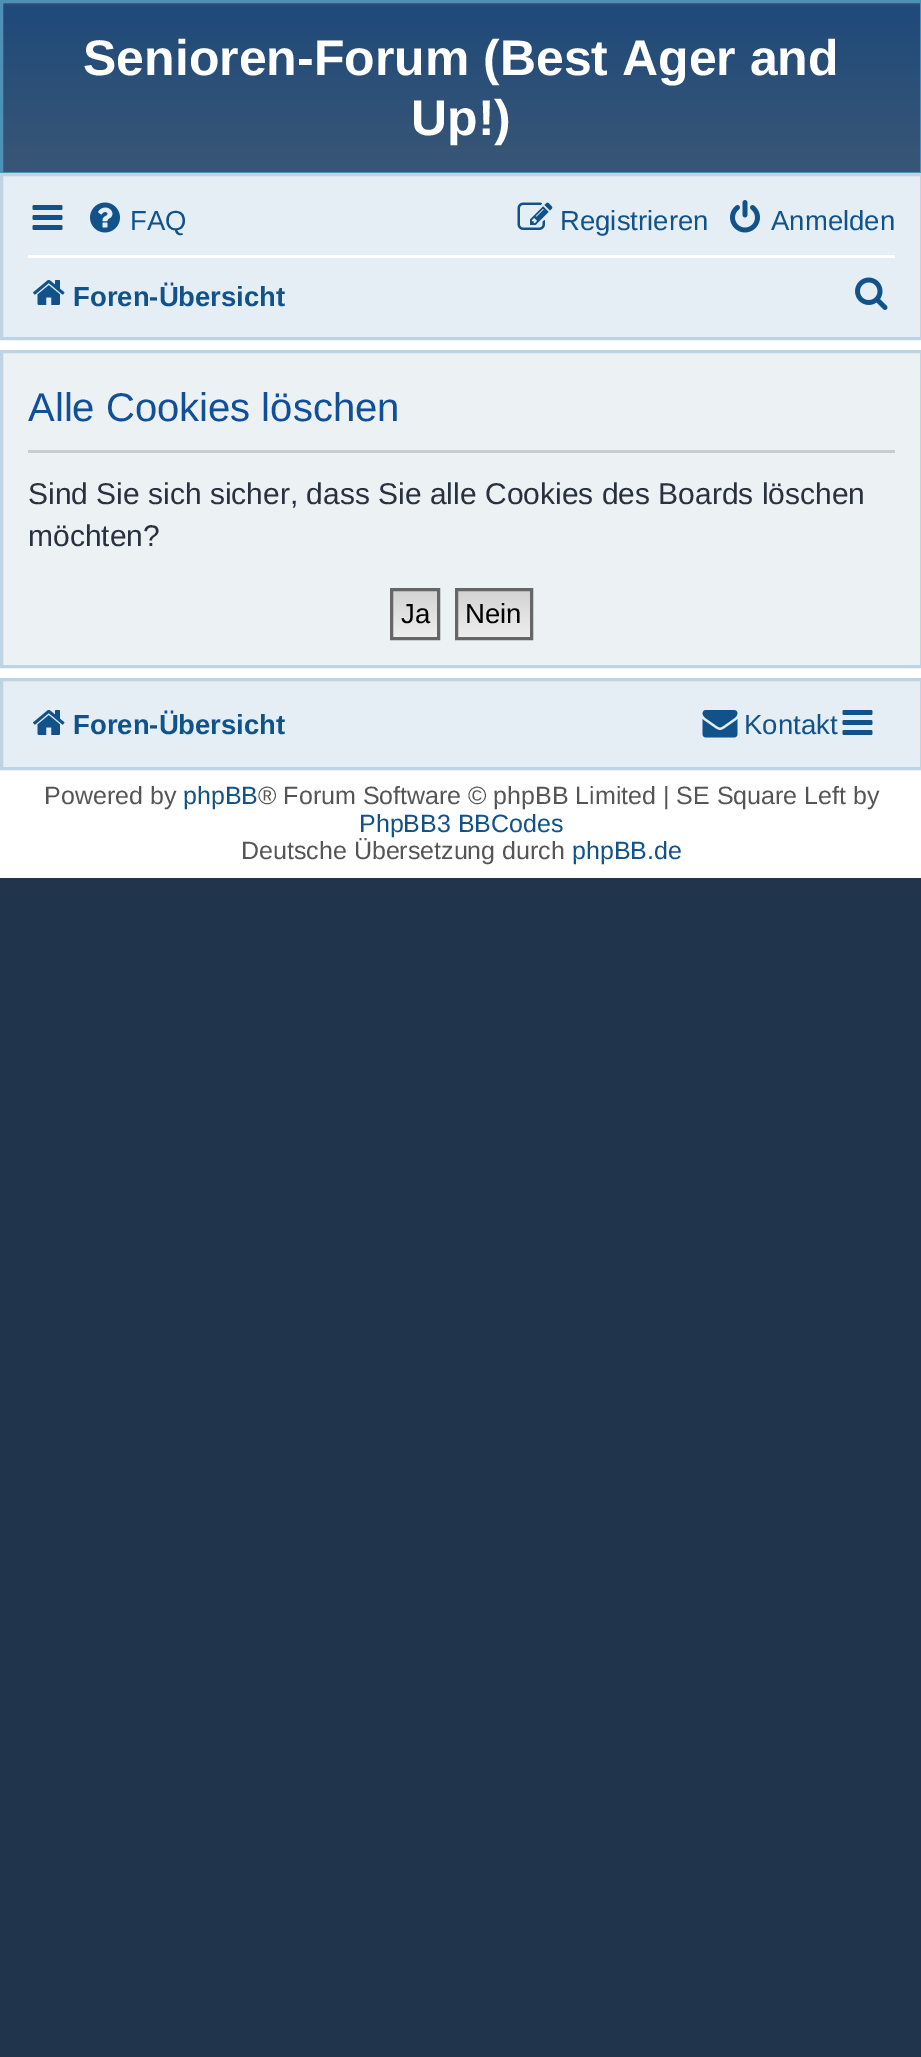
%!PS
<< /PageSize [921 2057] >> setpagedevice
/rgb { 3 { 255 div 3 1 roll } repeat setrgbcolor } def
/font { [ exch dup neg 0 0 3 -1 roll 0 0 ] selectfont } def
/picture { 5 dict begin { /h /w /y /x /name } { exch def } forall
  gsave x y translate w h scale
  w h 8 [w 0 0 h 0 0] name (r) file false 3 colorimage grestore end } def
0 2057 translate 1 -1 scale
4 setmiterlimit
32 53 76 rgb
0 0 921 2057 rectfill
255 255 255 rgb
0 340 921 538 rectfill
gsave 3 3 moveto 920 3 lineto 920 172 lineto 3 172 lineto closepath clip newpath
<< /ShadingType 2 /ColorSpace /DeviceRGB /Coords [461 2.5 461 233] /Extend [true true] /Function << /FunctionType 3 /Domain [0 1] /Functions [<< /FunctionType 2 /Domain [0 1] /C0 [0.192 0.322 0.459] /C1 [0.122 0.29 0.478] /N 1 >> << /FunctionType 2 /Domain [0 1] /C0 [0.122 0.29 0.478] /C1 [0.259 0.353 0.459] /N 1 >>] /Bounds [0.02] /Encode [0 1 0 1] >> >> shfill grestore
79 145 182 rgb
3 setlinewidth
1.5 1.5 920 172 rectstroke
229 238 245 rgb
1.5 174.5 moveto 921.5 174.5 lineto 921.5 338.5 lineto 1.5 338.5 lineto closepath gsave fill grestore
188 212 227 rgb
stroke
(img/1.rgb) 32 205 31 25 picture
(img/2.rgb) 90 202 30 31 picture
(img/3.rgb) 517 202 36 28 picture
(img/4.rgb) 730 200 30 33 picture
255 255 255 rgb
28 255 867 3 rectfill
(img/5.rgb) 33 279 32 26 picture
(img/6.rgb) 855 277 33 33 picture
236 241 243 rgb
1.5 351.5 moveto 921.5 351.5 lineto 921.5 666.5 lineto 1.5 666.5 lineto closepath gsave fill grestore
188 212 227 rgb
stroke
204 204 204 rgb
28 450 867 3 rectfill
gsave 393 591 moveto 437 591 lineto 437 637 lineto 393 637 lineto closepath clip newpath
<< /ShadingType 2 /ColorSpace /DeviceRGB /Coords [415 590 415 638] /Extend [true true] /Function << /FunctionType 2 /Domain [0 1] /C0 [0.824 0.824 0.824] /C1 [0.937 0.937 0.937] /N 1 >> >> shfill grestore
102 102 102 rgb
391.5 589.5 47 49 rectstroke
gsave 458 591 moveto 530 591 lineto 530 637 lineto 458 637 lineto closepath clip newpath
<< /ShadingType 2 /ColorSpace /DeviceRGB /Coords [494 590 494 638] /Extend [true true] /Function << /FunctionType 2 /Domain [0 1] /C0 [0.824 0.824 0.824] /C1 [0.937 0.937 0.937] /N 1 >> >> shfill grestore
456.5 589.5 75 49 rectstroke
229 238 245 rgb
1.5 679.5 moveto 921.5 679.5 lineto 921.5 768.5 lineto 1.5 768.5 lineto closepath gsave fill grestore
188 212 227 rgb
stroke
(img/5.rgb) 33 709 32 26 picture
(img/7.rgb) 702 710 36 28 picture
(img/1.rgb) 842 710 31 25 picture
/LiberationSans-Bold 50 font
255 255 255 rgb
83 75 moveto (Senioren-Forum \(Best Ager and) show
411 135 moveto (Up!\)) show
/LiberationSans-Regular 27.5 font
16 82 137 rgb
[
  [(FAQ) 130 230]
  [(Registrieren) 560 230]
  [(Anmelden) 771 230]
] { aload pop moveto show } forall
/LiberationSans-Bold 27.5 font
73 306 moveto (Foren-Übersicht) show
/LiberationSans-Regular 40 font
17 80 152 rgb
28 421 moveto (Alle Cookies löschen) show
/LiberationSans-Regular 30 font
40 49 63 rgb
28 504 moveto (Sind Sie sich sicher, dass Sie alle Cookies des Boards löschen) show
28 546 moveto (möchten?) show
/LiberationSans-Regular 27.5 font
0 0 0 rgb
401 623 moveto (Ja) show
465 623 moveto (Nein) show
/LiberationSans-Bold 27.5 font
16 82 137 rgb
73 734 moveto (Foren-Übersicht) show
/LiberationSans-Regular 27.5 font
744 734 moveto (Kontakt) show
/LiberationSans-Regular 25 font
85 85 85 rgb
44 804 moveto (Powered by) show
16 82 137 rgb
183 804 moveto (phpBB) show
85 85 85 rgb
258 804 moveto (® Forum Software © phpBB Limited | SE Square Left by) show
16 82 137 rgb
359 832 moveto (PhpBB3 BBCodes) show
85 85 85 rgb
241 859 moveto (Deutsche Übersetzung durch) show
16 82 137 rgb
572 859 moveto (phpBB.de) show
showpage
